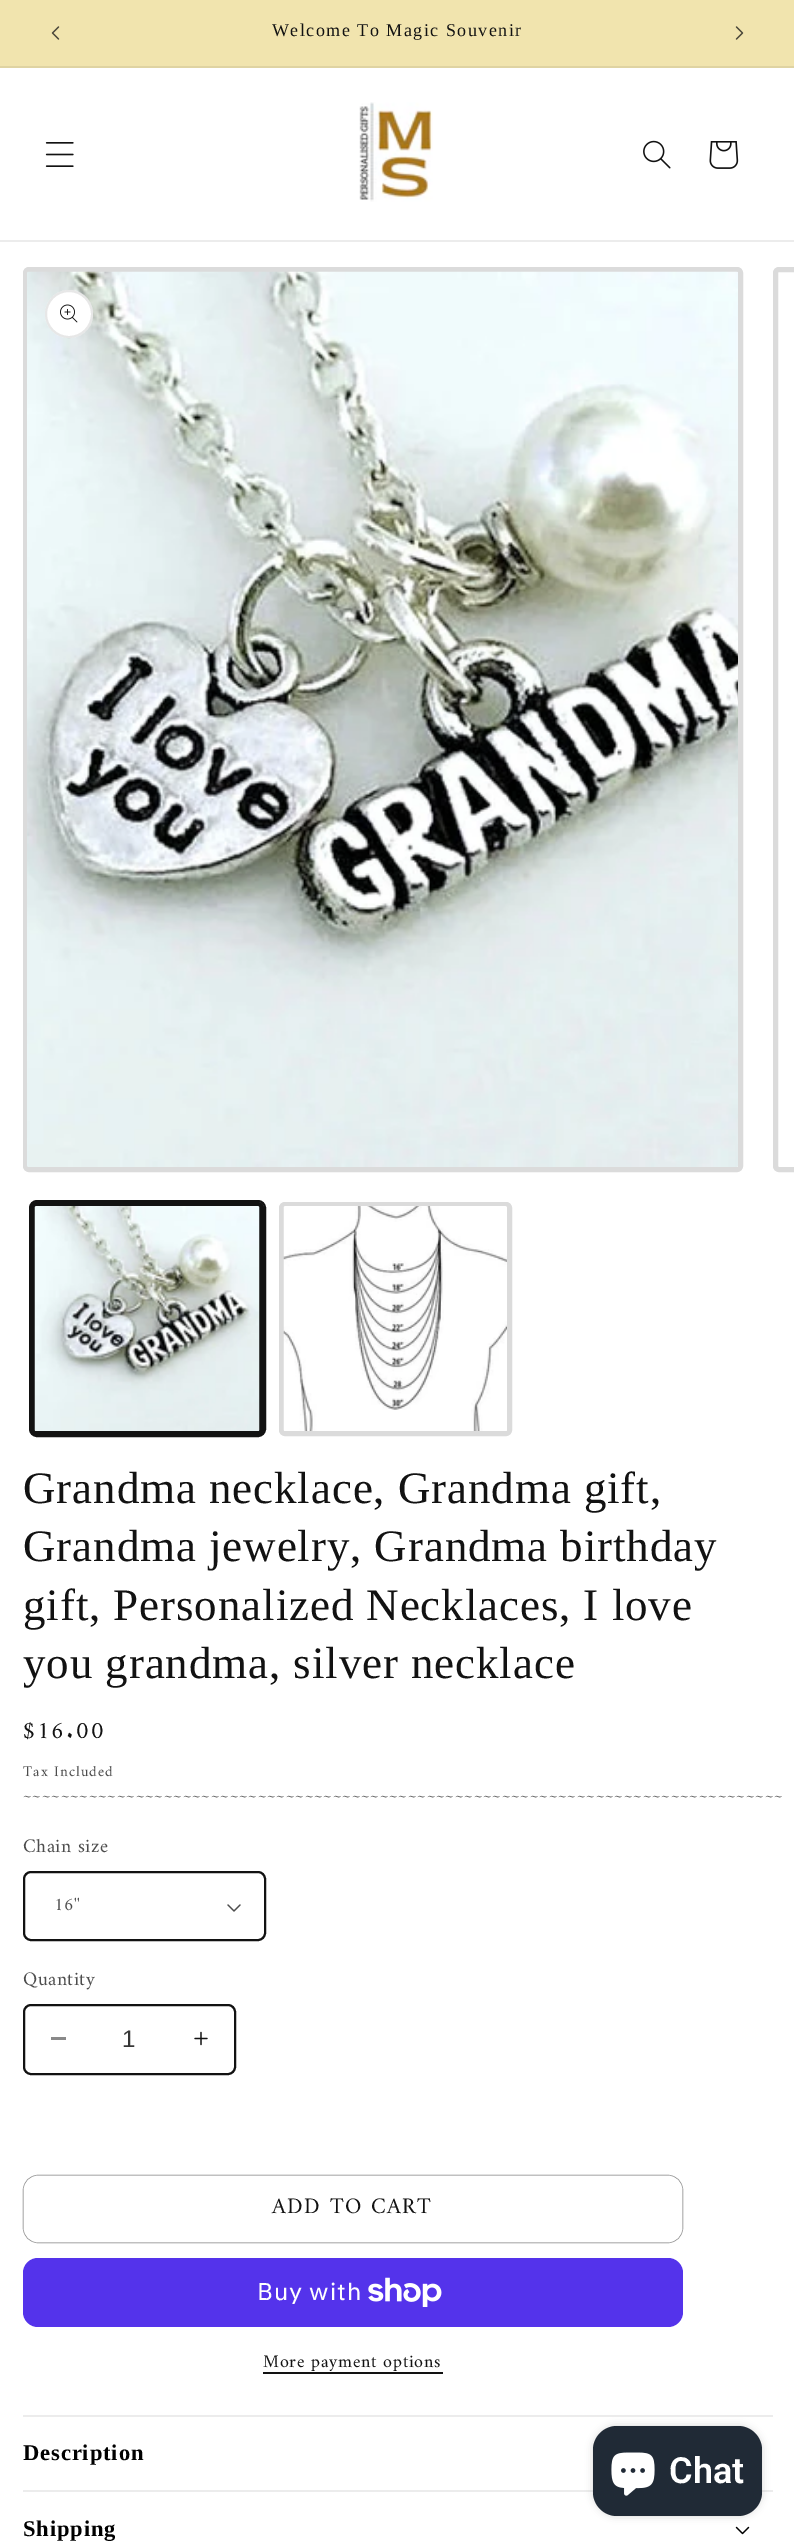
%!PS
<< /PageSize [794 2547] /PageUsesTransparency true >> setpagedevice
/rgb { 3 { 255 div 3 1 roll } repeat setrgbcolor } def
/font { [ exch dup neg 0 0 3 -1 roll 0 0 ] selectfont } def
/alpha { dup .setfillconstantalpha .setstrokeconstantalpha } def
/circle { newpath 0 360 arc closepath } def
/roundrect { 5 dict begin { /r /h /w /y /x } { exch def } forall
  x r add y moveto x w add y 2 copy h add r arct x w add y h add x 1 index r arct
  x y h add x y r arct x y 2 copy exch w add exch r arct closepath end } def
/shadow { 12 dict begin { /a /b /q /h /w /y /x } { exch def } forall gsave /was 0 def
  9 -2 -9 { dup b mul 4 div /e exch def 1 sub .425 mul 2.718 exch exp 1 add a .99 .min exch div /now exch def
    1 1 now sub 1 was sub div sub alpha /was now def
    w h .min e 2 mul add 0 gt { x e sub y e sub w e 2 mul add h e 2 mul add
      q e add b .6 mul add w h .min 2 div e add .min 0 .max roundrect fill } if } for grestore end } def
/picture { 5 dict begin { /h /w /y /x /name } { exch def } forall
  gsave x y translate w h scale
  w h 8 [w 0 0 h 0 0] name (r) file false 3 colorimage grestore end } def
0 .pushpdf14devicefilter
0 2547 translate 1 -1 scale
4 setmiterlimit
255 255 255 rgb
0 0 794 2547 rectfill
241 228 174 rgb
0 0 794 66 rectfill
223 211 162 rgb
0 66 794 2 rectfill
(img/1.rgb) 51 26 9 14 picture
(img/2.rgb) 735 26 9 14 picture
236 236 236 rgb
0 240 794 2 rectfill
(img/3.rgb) 45 142 29 25 picture
(img/4.rgb) 359 102 74 100 picture
(img/5.rgb) 643 140 28 29 picture
(img/6.rgb) 709 141 30 28 picture
219 219 219 rgb
5 setlinewidth
25.5 269.5 715 900 3.5 roundrect stroke
(img/7.rgb) 27 271 711 896 picture
255 255 255 rgb
69 314 24 circle fill
0.1 alpha
18 18 18 rgb
2 setlinewidth
69 314 23 circle stroke
1 alpha
(img/8.rgb) 60 304 18 19 picture
219 219 219 rgb
5 setlinewidth
775.5 269.5 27 900 3.5 roundrect stroke
18 18 18 rgb
2 setlinewidth
30 1201 235 235 7 roundrect stroke
5 setlinewidth
32.5 1204.5 229 229 3.5 roundrect stroke
(img/9.rgb) 34 1206 226 225 picture
219 219 219 rgb
281.5 1204.5 228 229 3.5 roundrect stroke
(img/10.rgb) 283 1206 224 225 picture
(img/11.rgb) 227 1904 14 8 picture
18 18 18 rgb
2 setlinewidth
24 1872 241 68 7 roundrect stroke
137 137 137 rgb
51 2037 15 3 rectfill
(img/12.rgb) 194 2031 14 15 picture
18 18 18 rgb
24 2005 211 69 7 roundrect stroke
137 137 137 rgb
0.4 setlinewidth
23.2 2175.2 659.6 67.6 14.8 roundrect stroke
84 51 235 rgb
23 2258 660 69 15 roundrect fill
(img/13.rgb) 368 2277 74 30 picture
[
  [263 2372 180 2 18 18 18]
  [23 2415 750 2 236 236 236]
  [23 2490 750 2 236 236 236]
] { aload pop rgb rectfill } forall
(img/14.rgb) 735 2526 15 9 picture
0 0 0 rgb
593 2426 169 90 24 4 0.15 shadow
32 42 54 rgb
593 2426 169 90 24 roundrect fill
(img/15.rgb) 611 2452 44 44 picture
/LiberationSerif-Regular 18 font
18 18 18 rgb
272 36 moveto 1.5 0 (Welcome To Magic Souvenir) ashow
/LiberationSerif-Regular 45 font
23 1503 moveto 0.9 0 (Grandma necklace, Grandma gift,) ashow
23 1561 moveto 0.9 0 (Grandma jewelry, Grandma birthday) ashow
23 1620 moveto 0.9 0 (gift, Personalized Necklaces, I love) ashow
23 1678 moveto 0.9 0 (you grandma, silver necklace) ashow
/Amiri-Regular 24 font
23 1738 moveto 2 0 ($16.00) ashow
/Amiri-Regular 15 font
77 77 77 rgb
23 1776 moveto 1.05 0 (Tax Included) ashow
23 1801 moveto 1.05 0 (~~~~~~~~~~~~~~~~~~~~~~~~~~~~~~~~~~~~~~~~~~~~~~~~~~~~~~~~~~~~~~~~~~~~~~~~~~~~~~~~~) ashow
/Amiri-Regular 19.5 font
23 1852 moveto 0.5 0 (Chain size) ashow
/Amiri-Regular 18 font
54 1910 moveto 0.5 0 (16'') ashow
/Amiri-Regular 19.5 font
23 1985 moveto 0.5 0 (Quantity) ashow
/LiberationSans-Regular 24 font
54 54 54 rgb
122 2047 moveto (1) show
/Amiri-Regular 22.5 font
18 18 18 rgb
272 2213 moveto 1.5 0 (ADD TO CART) ashow
/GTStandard-Regular 24 font
255 255 255 rgb
257 2300 moveto 0.9 0 (Buy with) ashow
/Amiri-Regular 18 font
18 18 18 rgb
263 2367 moveto 0.75 0 (More payment options) ashow
/LiberationSerif-Bold 22.5 font
0 0 0 rgb
23 2460 moveto 0.9 0 (Description) ashow
23 2536 moveto 0.9 0 (Shipping) ashow
/Roboto-SemiBold 36 font
255 255 255 rgb
669 2483 moveto (Chat) show
.poppdf14devicefilter showpage
